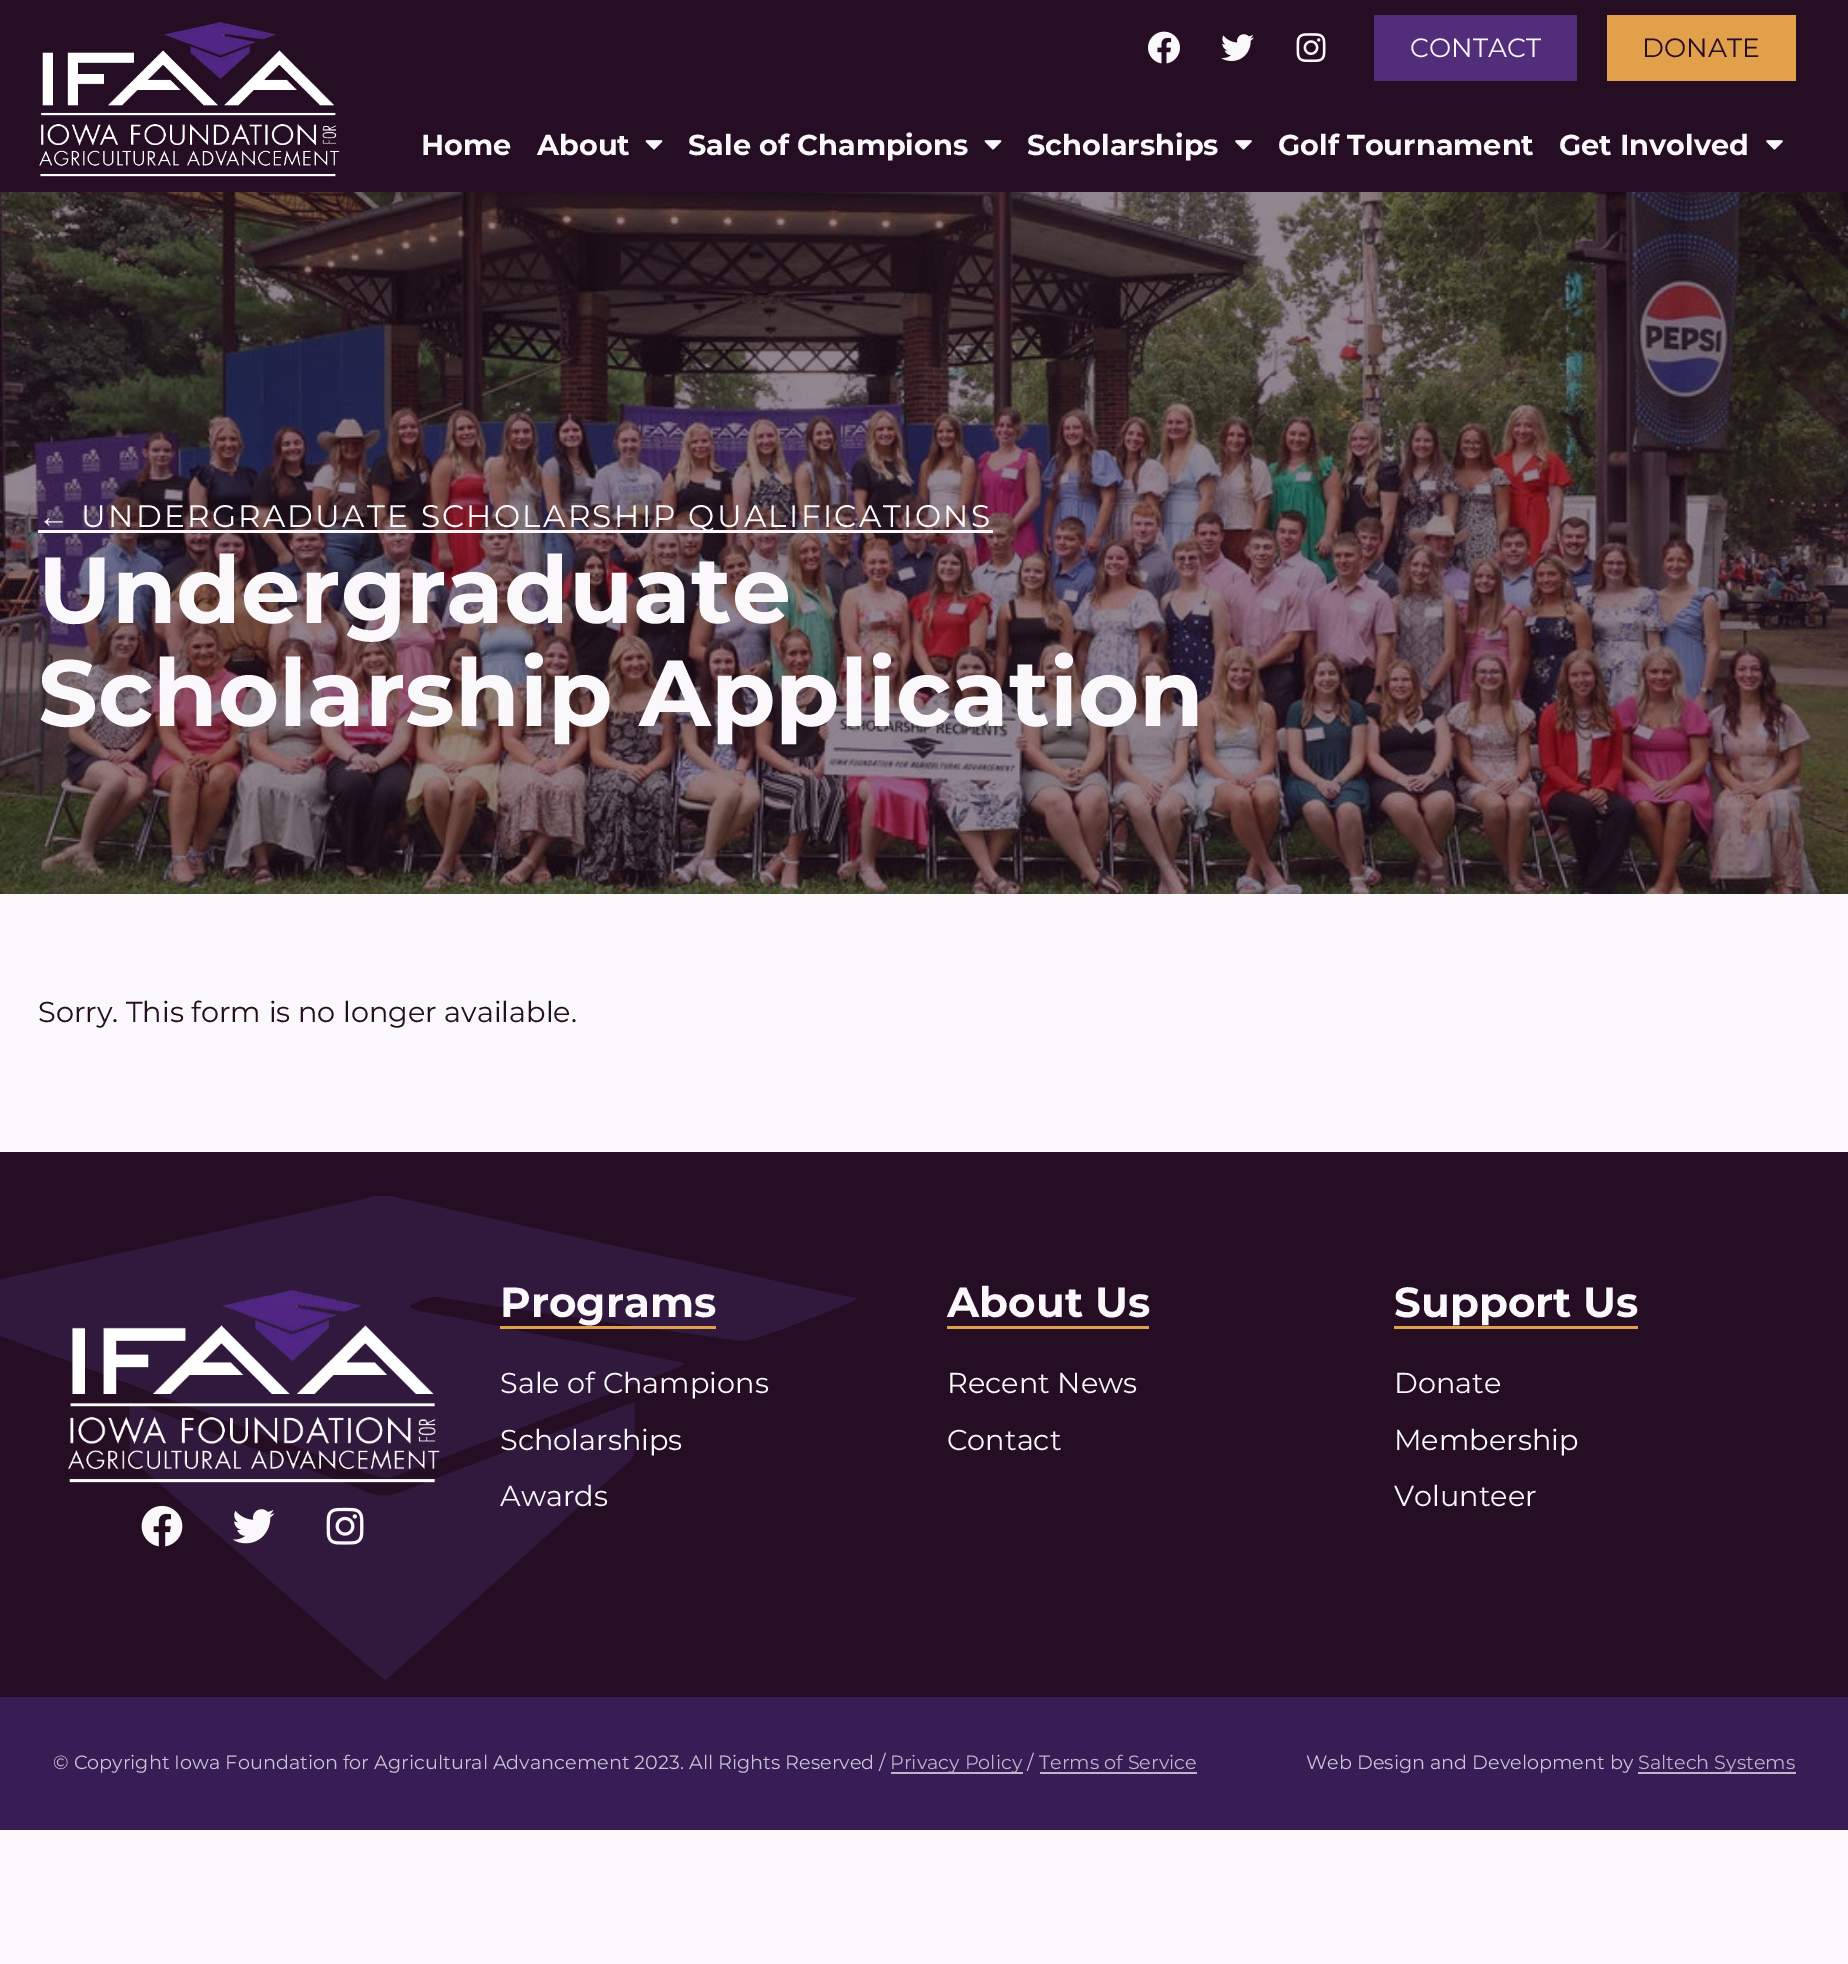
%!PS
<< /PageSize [1848 1964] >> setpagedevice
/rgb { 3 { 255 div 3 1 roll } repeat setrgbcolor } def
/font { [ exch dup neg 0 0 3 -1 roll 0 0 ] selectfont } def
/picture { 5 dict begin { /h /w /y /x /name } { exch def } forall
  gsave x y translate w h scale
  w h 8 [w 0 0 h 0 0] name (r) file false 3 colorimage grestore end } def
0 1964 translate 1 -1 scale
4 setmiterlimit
250 248 251 rgb
0 0 1848 1964 rectfill
37 13 35 rgb
0 0 1848 192 rectfill
(img/1.rgb) 39 22 301 155 picture
(img/2.rgb) 1148 31 32 33 picture
(img/3.rgb) 1221 34 33 27 picture
(img/4.rgb) 1296 33 30 30 picture
82 45 123 rgb
1374 15 203 66 rectfill
226 160 74 rgb
1607 15 189 66 rectfill
(img/5.rgb) 645 140 18 10 picture
(img/5.rgb) 984 140 18 10 picture
(img/6.rgb) 1235 140 17 10 picture
(img/6.rgb) 1766 140 17 10 picture
(img/7.rgb) 0 192 1848 702 picture
250 248 251 rgb
38 530 955 3 rectfill
37 13 35 rgb
0 1152 1848 545 rectfill
(img/8.rgb) 0 1196 857 484 picture
(img/9.rgb) 68 1290 372 193 picture
(img/10.rgb) 141 1505 42 42 picture
(img/11.rgb) 232 1509 43 35 picture
(img/12.rgb) 326 1507 38 38 picture
[
  [500 1326 216 3 226 160 74]
  [947 1326 202 3 226 160 74]
  [1394 1326 244 3 226 160 74]
  [0 1697 1848 133 55 28 86]
  [891 1772 132 2 192 182 202]
  [1040 1772 157 2 192 182 202]
  [1638 1772 158 2 192 182 202]
] { aload pop rgb rectfill } forall
/Montserrat-Regular 26.5 font
250 248 251 rgb
1410 57 moveto (CONTACT) show
37 13 35 rgb
1642 57 moveto (DONATE) show
/Montserrat-Bold 28.75 font
250 248 251 rgb
[
  [(Home) 421 155]
  [(About) 537 155]
  [(Sale of Champions) 688 155]
  [(Scholarships) 1027 155]
  [(Golf Tournament) 1278 155]
  [(Get Involved) 1559 155]
] { aload pop moveto show } forall
/LiberationSans-Regular 31.2 font
38 527 moveto 2.25 0 (←) ashow
/Montserrat-Regular 31.2 font
81 527 moveto 2.25 0 (UNDERGRADUATE SCHOLARSHIP QUALIFICATIONS) ashow
/Montserrat-Bold 93.6 font
38 623 moveto (Undergraduate) show
38 726 moveto (Scholarship Application) show
/Montserrat-Regular 28.75 font
37 13 35 rgb
38 1022 moveto (Sorry. This form is no longer available.) show
/Montserrat-Bold 42 font
250 248 251 rgb
500 1317 moveto (Programs) show
/Montserrat-Regular 28.75 font
[
  [(Sale of Champions) 500 1393]
  [(Scholarships) 500 1450]
  [(Awards) 500 1506]
] { aload pop moveto show } forall
/Montserrat-Bold 42 font
947 1317 moveto (About Us) show
/Montserrat-Regular 28.75 font
947 1393 moveto (Recent News) show
947 1450 moveto (Contact) show
/Montserrat-Bold 42 font
1394 1317 moveto (Support Us) show
/Montserrat-Regular 28.75 font
[
  [(Donate) 1394 1393]
  [(Membership) 1394 1450]
  [(Volunteer) 1394 1506]
] { aload pop moveto show } forall
/Montserrat-Regular 19.2 font
205 197 213 rgb
53 1769 moveto (© Copyright Iowa Foundation for Agricultural Advancement 2023. All Rights Reserved /) show
192 182 202 rgb
890 1769 moveto (Privacy Policy) show
205 197 213 rgb
1027 1769 moveto (/) show
192 182 202 rgb
1039 1769 moveto (Terms of Service) show
205 197 213 rgb
1306 1769 moveto (Web Design and Development by) show
192 182 202 rgb
1638 1769 moveto (Saltech Systems) show
showpage
